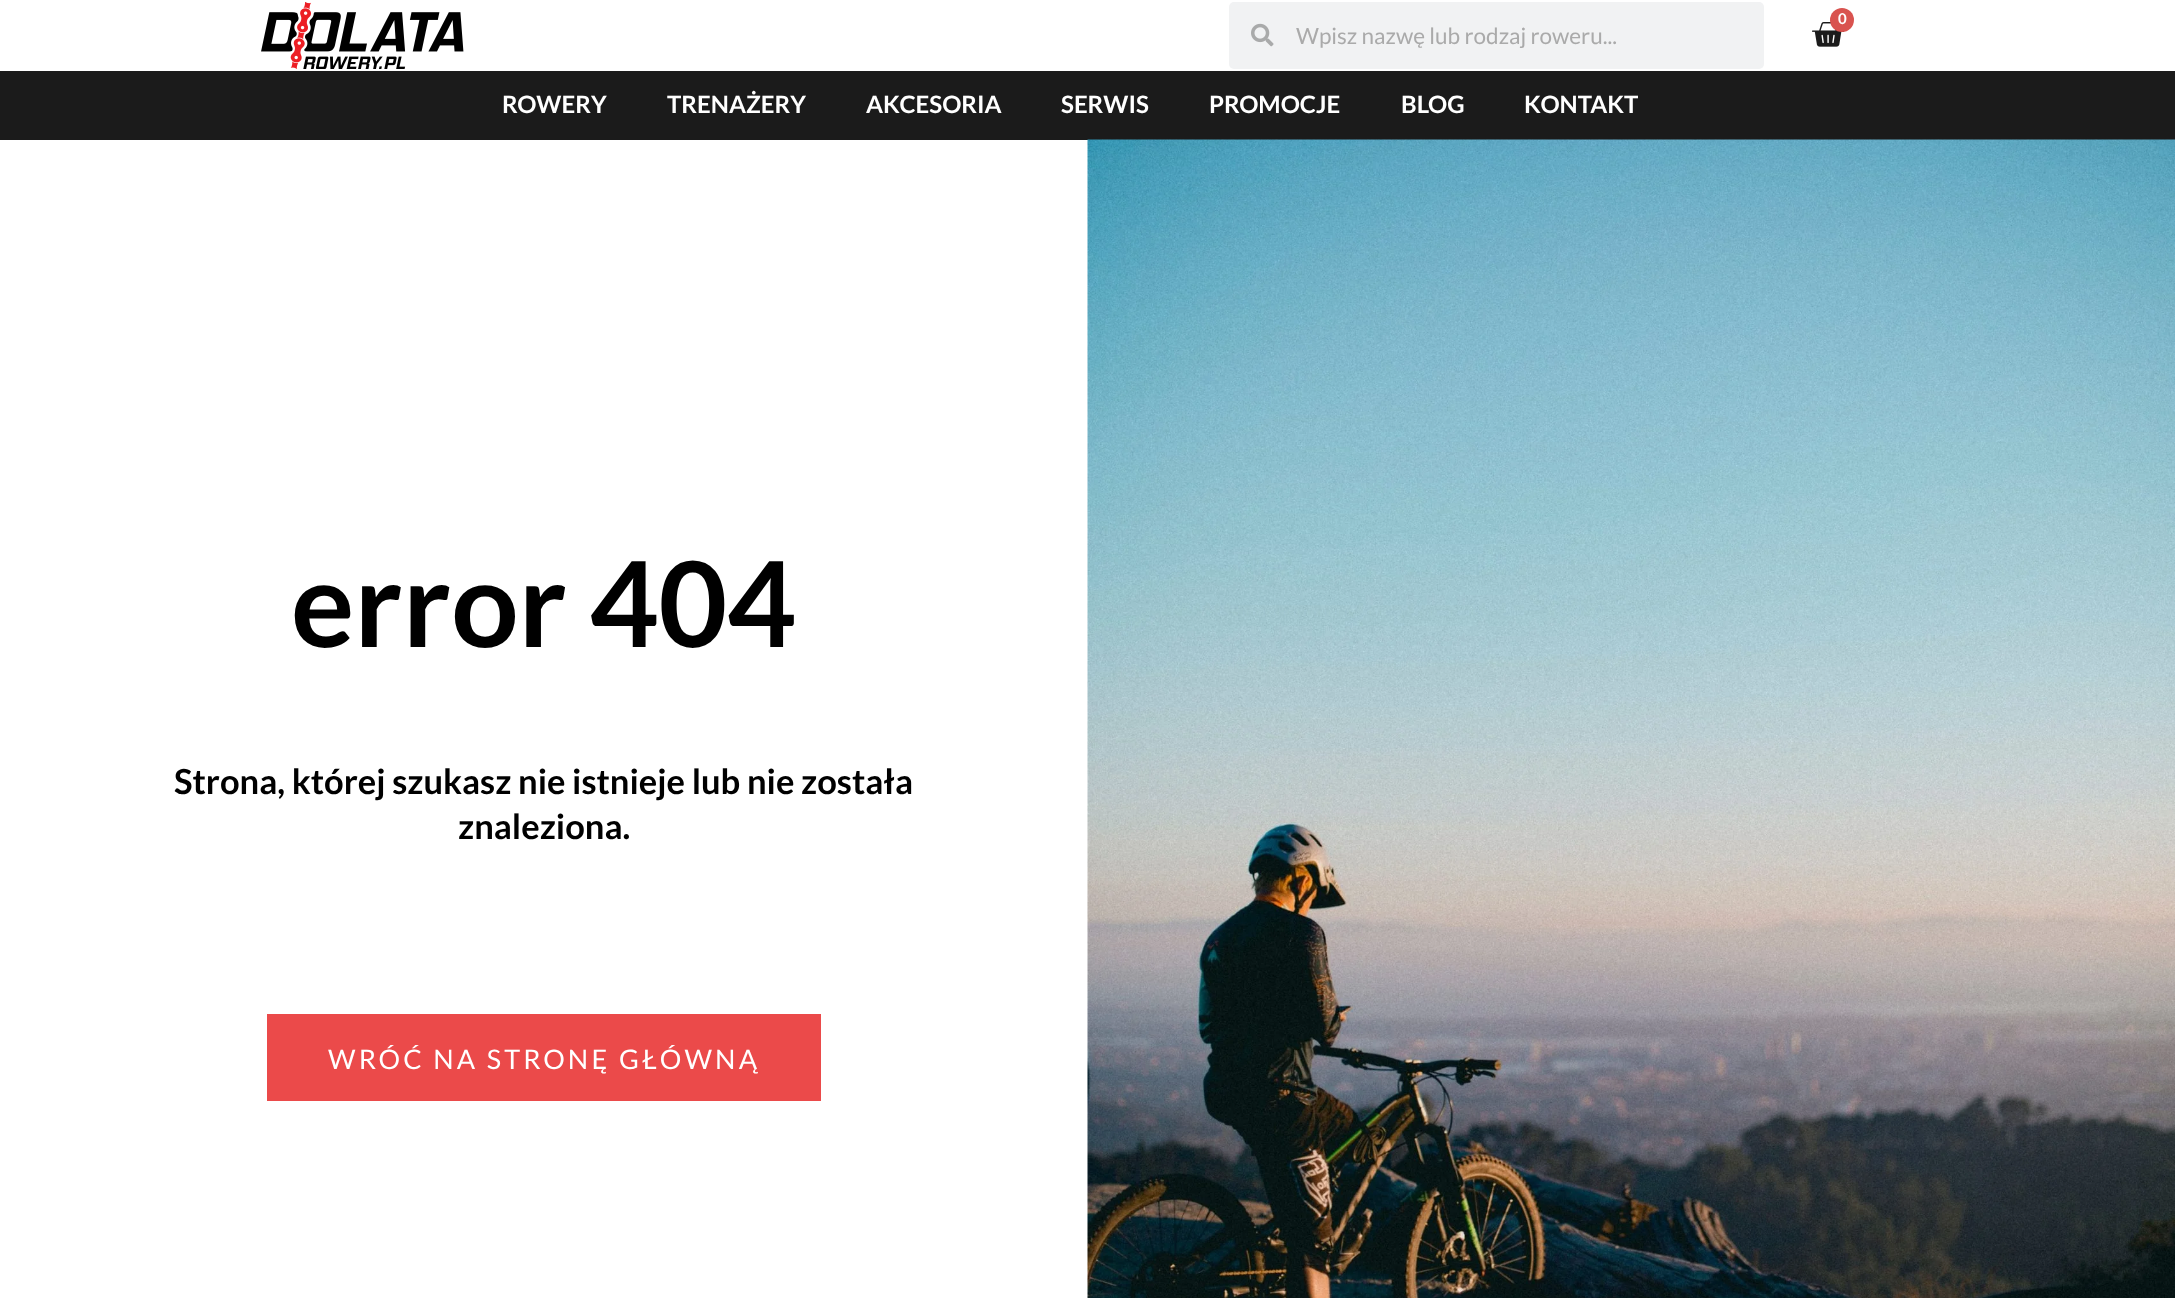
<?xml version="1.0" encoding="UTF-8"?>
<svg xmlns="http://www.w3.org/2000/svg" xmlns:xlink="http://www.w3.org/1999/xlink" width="2175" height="1298">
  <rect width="100%" height="100%" fill="#ffffff" />
  <image x="261" y="2" width="203" height="67" xlink:href="image1.png" />
  <image x="1812" y="22" width="33" height="25" xlink:href="image2.png" />
  <circle cx="1842" cy="20" r="12" fill="#d9534f" />
  <rect x="1229" y="2" width="535" height="67" rx="5" fill="#f1f2f3" />
  <image x="1251" y="23" width="23" height="24" xlink:href="image3.png" />
  <rect y="71" width="2175" height="69" fill="#1b1b1b" />
  <rect x="267" y="1014" width="554" height="87" fill="#eb4a4a" />
  <image x="1087" y="139" width="1088" height="1159" xlink:href="image4.png" />
  <text x="1838" y="24" style="font-family: Lato; font-size: 15px; font-weight: bold; fill: #ffffff">0</text>
  <text x="1296" y="44" style="font-family: Lato; font-size: 22.5px; fill: #aaaaaa">Wpisz nazwę lub rodzaj roweru...</text>
  <text x="502" y="113" style="font-family: Lato; font-size: 24px; font-weight: bold; fill: #ffffff">ROWERY</text>
  <text x="667" y="113" style="font-family: Lato; font-size: 24px; font-weight: bold; fill: #ffffff">TRENAŻERY</text>
  <text x="866" y="113" style="font-family: Lato; font-size: 24px; font-weight: bold; fill: #ffffff">AKCESORIA</text>
  <text x="1061" y="113" style="font-family: Lato; font-size: 24px; font-weight: bold; fill: #ffffff">SERWIS</text>
  <text x="1209" y="113" style="font-family: Lato; font-size: 24px; font-weight: bold; fill: #ffffff">PROMOCJE</text>
  <text x="1401" y="113" style="font-family: Lato; font-size: 24px; font-weight: bold; fill: #ffffff">BLOG</text>
  <text x="1524" y="113" style="font-family: Lato; font-size: 24px; font-weight: bold; fill: #ffffff">KONTAKT</text>
  <text x="291" y="647" style="font-family: Lato; font-size: 118.5px; font-weight: bold; fill: #000000">error 404</text>
  <text x="174" y="794" style="font-family: Lato; font-size: 34.5px; font-weight: bold; fill: #000000">Strona, której szukasz nie istnieje lub nie została</text>
  <text x="458" y="839" style="font-family: Lato; font-size: 34.5px; font-weight: bold; fill: #000000">znaleziona.</text>
  <text x="328" y="1069" style="font-family: Lato; font-size: 27px; letter-spacing: 3.15px; fill: #ffffff">WRÓĆ NA STRONĘ GŁÓWNĄ</text>
</svg>
